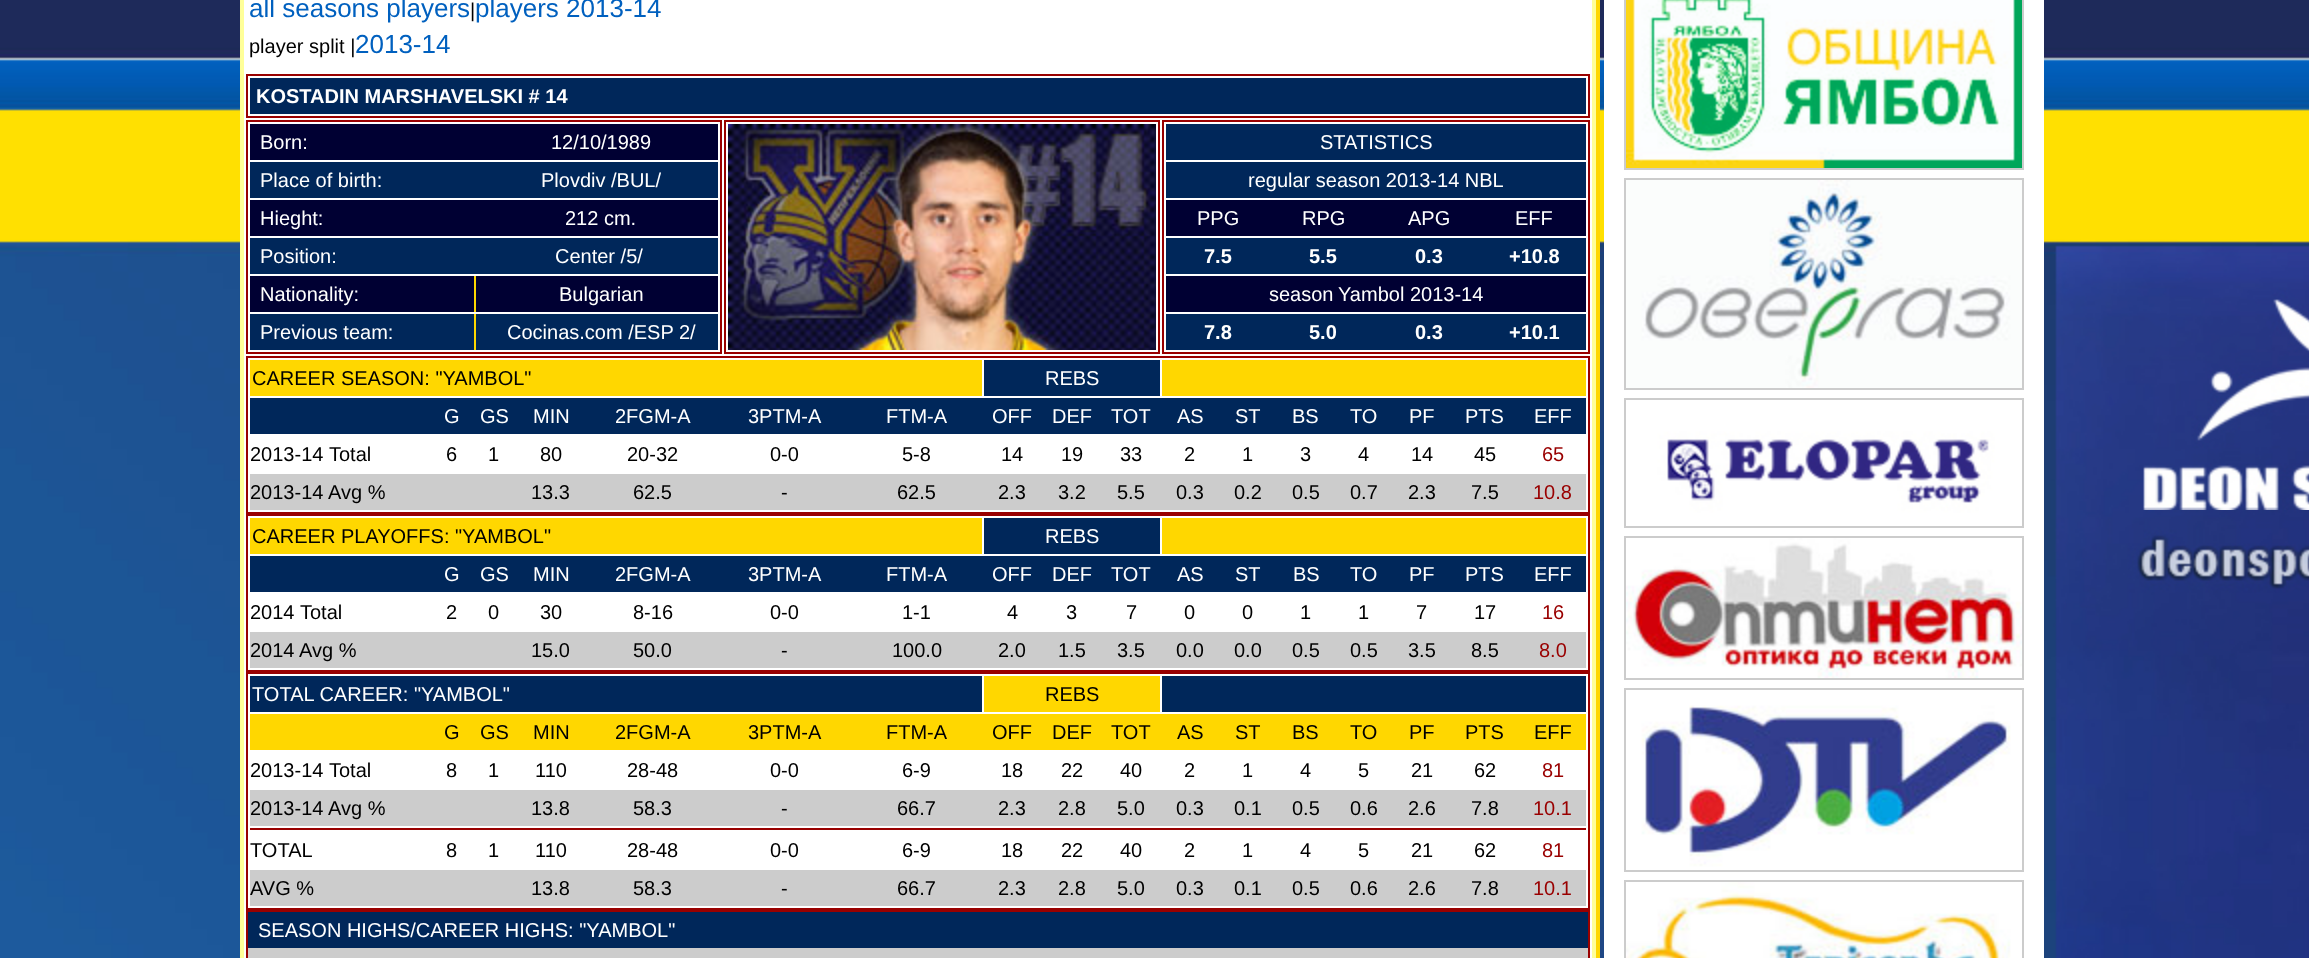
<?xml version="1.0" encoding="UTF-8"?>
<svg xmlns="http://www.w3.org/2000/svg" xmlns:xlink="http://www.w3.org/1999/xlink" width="2309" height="958">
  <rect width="100%" height="100%" fill="#ffffff" />
  <image x="0" y="0" width="2309" height="958" xlink:href="image1.png" />
  <rect x="1596" width="4" height="958" fill="#ffd700" />
  <rect x="240" width="1356" height="958" fill="#ffff99" />
  <rect x="244" width="1348" height="958" fill="#ffffff" />
  <rect x="246" y="74" width="1344" height="44" fill="#990000" />
  <rect x="248" y="76" width="1340" height="40" fill="#ffffff" />
  <rect x="250" y="78" width="1336" height="36" fill="#00275a" />
  <rect x="246" y="120" width="476" height="234" fill="#990000" />
  <rect x="248" y="122" width="472" height="230" fill="#ffffff" />
  <rect x="250" y="124" width="468" height="36" fill="#000033" />
  <rect x="250" y="162" width="468" height="36" fill="#00275a" />
  <rect x="250" y="200" width="468" height="36" fill="#000033" />
  <rect x="250" y="238" width="468" height="36" fill="#00275a" />
  <rect x="474" y="276" width="2" height="36" fill="#ffd700" />
  <rect x="250" y="276" width="224" height="36" fill="#000033" />
  <rect x="476" y="276" width="242" height="36" fill="#000033" />
  <rect x="474" y="314" width="2" height="36" fill="#ffd700" />
  <rect x="250" y="314" width="224" height="36" fill="#00275a" />
  <rect x="476" y="314" width="242" height="36" fill="#00275a" />
  <rect x="724" y="120" width="436" height="234" fill="#990000" />
  <rect x="726" y="122" width="432" height="230" fill="#ffffff" />
  <image x="728" y="124" width="428" height="226" xlink:href="image2.png" />
  <rect x="1162" y="120" width="428" height="234" fill="#990000" />
  <rect x="1164" y="122" width="424" height="230" fill="#ffffff" />
  <rect x="1166" y="124" width="420" height="36" fill="#00275a" />
  <rect x="1166" y="162" width="420" height="36" fill="#00275a" />
  <rect x="1166" y="200" width="420" height="36" fill="#000033" />
  <rect x="1166" y="238" width="420" height="36" fill="#00275a" />
  <rect x="1166" y="276" width="420" height="36" fill="#000033" />
  <rect x="1166" y="314" width="420" height="36" fill="#00275a" />
  <rect x="246" y="356" width="1344" height="602" fill="#990000" />
  <rect x="248" y="358" width="1340" height="154" fill="#ffffff" />
  <rect x="250" y="360" width="732" height="36" fill="#ffd700" />
  <rect x="984" y="360" width="176" height="36" fill="#00275a" />
  <rect x="1162" y="360" width="424" height="36" fill="#ffd700" />
  <rect x="250" y="398" width="1336" height="36" fill="#00275a" />
  <rect x="250" y="474" width="1336" height="36" fill="#cccccc" />
  <rect x="248" y="516" width="1340" height="154" fill="#ffffff" />
  <rect x="250" y="518" width="732" height="36" fill="#ffd700" />
  <rect x="984" y="518" width="176" height="36" fill="#00275a" />
  <rect x="1162" y="518" width="424" height="36" fill="#ffd700" />
  <rect x="250" y="556" width="1336" height="36" fill="#00275a" />
  <rect x="250" y="632" width="1336" height="36" fill="#cccccc" />
  <rect x="248" y="674" width="1340" height="234" fill="#ffffff" />
  <rect x="250" y="676" width="732" height="36" fill="#00275a" />
  <rect x="984" y="676" width="176" height="36" fill="#ffd700" />
  <rect x="1162" y="676" width="424" height="36" fill="#00275a" />
  <rect x="250" y="714" width="1336" height="36" fill="#ffd700" />
  <rect x="250" y="790" width="1336" height="36" fill="#cccccc" />
  <rect x="250" y="828" width="1336" height="2" fill="#990000" />
  <rect x="250" y="870" width="1336" height="36" fill="#cccccc" />
  <rect x="248" y="912" width="1340" height="36" fill="#00275a" />
  <rect x="248" y="948" width="1340" height="10" fill="#cccccc" />
  <rect x="1604" width="440" height="958" fill="#ffffff" />
  <rect x="1624" width="400" height="170" fill="#cccccc" />
  <image x="1626" y="0" width="396" height="168" xlink:href="image3.png" />
  <rect x="1624" y="178" width="400" height="212" fill="#cccccc" />
  <image x="1626" y="180" width="396" height="208" xlink:href="image4.png" />
  <rect x="1624" y="398" width="400" height="130" fill="#cccccc" />
  <image x="1626" y="400" width="396" height="126" xlink:href="image5.png" />
  <rect x="1624" y="536" width="400" height="144" fill="#cccccc" />
  <image x="1626" y="538" width="396" height="140" xlink:href="image6.png" />
  <rect x="1624" y="688" width="400" height="184" fill="#cccccc" />
  <image x="1626" y="690" width="396" height="180" xlink:href="image7.png" />
  <rect x="1624" y="880" width="400" height="78" fill="#cccccc" />
  <image x="1626" y="882" width="396" height="76" xlink:href="image8.png" />
  <text x="249" y="17" style="font-family: Liberation Sans; font-size: 26px; fill: #0060bf">all seasons players</text>
  <text x="470" y="17" style="font-family: Liberation Sans; font-size: 20px; fill: #000000">|</text>
  <text x="475" y="17" style="font-family: Liberation Sans; font-size: 26px; fill: #0060bf">players 2013-14</text>
  <text x="249" y="53" style="font-family: Liberation Sans; font-size: 20px; fill: #000000">player split |</text>
  <text x="355" y="53" style="font-family: Liberation Sans; font-size: 26px; fill: #0060bf">2013-14</text>
  <text x="256" y="103" style="font-family: Liberation Sans; font-size: 20px; font-weight: bold; fill: #ffffff">KOSTADIN MARSHAVELSKI # 14</text>
  <text x="260" y="149" style="font-family: Liberation Sans; font-size: 20px; fill: #ffffff">Born:</text>
  <text x="551" y="149" style="font-family: Liberation Sans; font-size: 20px; fill: #ffffff">12/10/1989</text>
  <text x="260" y="187" style="font-family: Liberation Sans; font-size: 20px; fill: #ffffff">Place of birth:</text>
  <text x="541" y="187" style="font-family: Liberation Sans; font-size: 20px; fill: #ffffff">Plovdiv /BUL/</text>
  <text x="260" y="225" style="font-family: Liberation Sans; font-size: 20px; fill: #ffffff">Hieght:</text>
  <text x="565" y="225" style="font-family: Liberation Sans; font-size: 20px; fill: #ffffff">212 cm.</text>
  <text x="260" y="263" style="font-family: Liberation Sans; font-size: 20px; fill: #ffffff">Position:</text>
  <text x="555" y="263" style="font-family: Liberation Sans; font-size: 20px; fill: #ffffff">Center /5/</text>
  <text x="260" y="301" style="font-family: Liberation Sans; font-size: 20px; fill: #ffffff">Nationality:</text>
  <text x="559" y="301" style="font-family: Liberation Sans; font-size: 20px; fill: #ffffff">Bulgarian</text>
  <text x="260" y="339" style="font-family: Liberation Sans; font-size: 20px; fill: #ffffff">Previous team:</text>
  <text x="507" y="339" style="font-family: Liberation Sans; font-size: 20px; fill: #ffffff">Cocinas.com /ESP 2/</text>
  <text x="1320" y="149" style="font-family: Liberation Sans; font-size: 20px; fill: #ffffff">STATISTICS</text>
  <text x="1248" y="187" style="font-family: Liberation Sans; font-size: 20px; fill: #ffffff">regular season 2013-14 NBL</text>
  <text x="1197" y="225" style="font-family: Liberation Sans; font-size: 20px; fill: #ffffff">PPG</text>
  <text x="1302" y="225" style="font-family: Liberation Sans; font-size: 20px; fill: #ffffff">RPG</text>
  <text x="1408" y="225" style="font-family: Liberation Sans; font-size: 20px; fill: #ffffff">APG</text>
  <text x="1515" y="225" style="font-family: Liberation Sans; font-size: 20px; fill: #ffffff">EFF</text>
  <text x="1204" y="263" style="font-family: Liberation Sans; font-size: 20px; font-weight: bold; fill: #ffffff">7.5</text>
  <text x="1309" y="263" style="font-family: Liberation Sans; font-size: 20px; font-weight: bold; fill: #ffffff">5.5</text>
  <text x="1415" y="263" style="font-family: Liberation Sans; font-size: 20px; font-weight: bold; fill: #ffffff">0.3</text>
  <text x="1509" y="263" style="font-family: Liberation Sans; font-size: 20px; font-weight: bold; fill: #ffffff">+10.8</text>
  <text x="1269" y="301" style="font-family: Liberation Sans; font-size: 20px; fill: #ffffff">season</text>
  <text x="1338" y="301" style="font-family: Liberation Sans; font-size: 20px; fill: #ffffff">Yambol 2013-14</text>
  <text x="1204" y="339" style="font-family: Liberation Sans; font-size: 20px; font-weight: bold; fill: #ffffff">7.8</text>
  <text x="1309" y="339" style="font-family: Liberation Sans; font-size: 20px; font-weight: bold; fill: #ffffff">5.0</text>
  <text x="1415" y="339" style="font-family: Liberation Sans; font-size: 20px; font-weight: bold; fill: #ffffff">0.3</text>
  <text x="1509" y="339" style="font-family: Liberation Sans; font-size: 20px; font-weight: bold; fill: #ffffff">+10.1</text>
  <text x="252" y="385" style="font-family: Liberation Sans; font-size: 20px; fill: #000000">CAREER SEASON: "YAMBOL"</text>
  <text x="1045" y="385" style="font-family: Liberation Sans; font-size: 20px; fill: #ffffff">REBS</text>
  <text x="444" y="423" style="font-family: Liberation Sans; font-size: 20px; fill: #ffffff">G</text>
  <text x="480" y="423" style="font-family: Liberation Sans; font-size: 20px; fill: #ffffff">GS</text>
  <text x="533" y="423" style="font-family: Liberation Sans; font-size: 20px; fill: #ffffff">MIN</text>
  <text x="615" y="423" style="font-family: Liberation Sans; font-size: 20px; fill: #ffffff">2FGM-A</text>
  <text x="748" y="423" style="font-family: Liberation Sans; font-size: 20px; fill: #ffffff">3PTM-A</text>
  <text x="886" y="423" style="font-family: Liberation Sans; font-size: 20px; fill: #ffffff">FTM-A</text>
  <text x="992" y="423" style="font-family: Liberation Sans; font-size: 20px; fill: #ffffff">OFF</text>
  <text x="1052" y="423" style="font-family: Liberation Sans; font-size: 20px; fill: #ffffff">DEF</text>
  <text x="1111" y="423" style="font-family: Liberation Sans; font-size: 20px; fill: #ffffff">TOT</text>
  <text x="1177" y="423" style="font-family: Liberation Sans; font-size: 20px; fill: #ffffff">AS</text>
  <text x="1235" y="423" style="font-family: Liberation Sans; font-size: 20px; fill: #ffffff">ST</text>
  <text x="1292" y="423" style="font-family: Liberation Sans; font-size: 20px; fill: #ffffff">BS</text>
  <text x="1350" y="423" style="font-family: Liberation Sans; font-size: 20px; fill: #ffffff">TO</text>
  <text x="1409" y="423" style="font-family: Liberation Sans; font-size: 20px; fill: #ffffff">PF</text>
  <text x="1465" y="423" style="font-family: Liberation Sans; font-size: 20px; fill: #ffffff">PTS</text>
  <text x="1534" y="423" style="font-family: Liberation Sans; font-size: 20px; fill: #ffffff">EFF</text>
  <text x="250" y="461" style="font-family: Liberation Sans; font-size: 20px; fill: #000000">2013-14</text>
  <text x="329" y="461" style="font-family: Liberation Sans; font-size: 20px; fill: #000000">Total</text>
  <text x="446" y="461" style="font-family: Liberation Sans; font-size: 20px; fill: #000000">6</text>
  <text x="488" y="461" style="font-family: Liberation Sans; font-size: 20px; fill: #000000">1</text>
  <text x="540" y="461" style="font-family: Liberation Sans; font-size: 20px; fill: #000000">80</text>
  <text x="627" y="461" style="font-family: Liberation Sans; font-size: 20px; fill: #000000">20-32</text>
  <text x="770" y="461" style="font-family: Liberation Sans; font-size: 20px; fill: #000000">0-0</text>
  <text x="902" y="461" style="font-family: Liberation Sans; font-size: 20px; fill: #000000">5-8</text>
  <text x="1001" y="461" style="font-family: Liberation Sans; font-size: 20px; fill: #000000">14</text>
  <text x="1061" y="461" style="font-family: Liberation Sans; font-size: 20px; fill: #000000">19</text>
  <text x="1120" y="461" style="font-family: Liberation Sans; font-size: 20px; fill: #000000">33</text>
  <text x="1184" y="461" style="font-family: Liberation Sans; font-size: 20px; fill: #000000">2</text>
  <text x="1242" y="461" style="font-family: Liberation Sans; font-size: 20px; fill: #000000">1</text>
  <text x="1300" y="461" style="font-family: Liberation Sans; font-size: 20px; fill: #000000">3</text>
  <text x="1358" y="461" style="font-family: Liberation Sans; font-size: 20px; fill: #000000">4</text>
  <text x="1411" y="461" style="font-family: Liberation Sans; font-size: 20px; fill: #000000">14</text>
  <text x="1474" y="461" style="font-family: Liberation Sans; font-size: 20px; fill: #000000">45</text>
  <text x="1542" y="461" style="font-family: Liberation Sans; font-size: 20px; fill: #990000">65</text>
  <text x="250" y="499" style="font-family: Liberation Sans; font-size: 20px; fill: #000000">2013-14</text>
  <text x="328" y="499" style="font-family: Liberation Sans; font-size: 20px; fill: #000000">Avg %</text>
  <text x="531" y="499" style="font-family: Liberation Sans; font-size: 20px; fill: #000000">13.3</text>
  <text x="633" y="499" style="font-family: Liberation Sans; font-size: 20px; fill: #000000">62.5</text>
  <text x="781" y="499" style="font-family: Liberation Sans; font-size: 20px; fill: #000000">-</text>
  <text x="897" y="499" style="font-family: Liberation Sans; font-size: 20px; fill: #000000">62.5</text>
  <text x="998" y="499" style="font-family: Liberation Sans; font-size: 20px; fill: #000000">2.3</text>
  <text x="1058" y="499" style="font-family: Liberation Sans; font-size: 20px; fill: #000000">3.2</text>
  <text x="1117" y="499" style="font-family: Liberation Sans; font-size: 20px; fill: #000000">5.5</text>
  <text x="1176" y="499" style="font-family: Liberation Sans; font-size: 20px; fill: #000000">0.3</text>
  <text x="1234" y="499" style="font-family: Liberation Sans; font-size: 20px; fill: #000000">0.2</text>
  <text x="1292" y="499" style="font-family: Liberation Sans; font-size: 20px; fill: #000000">0.5</text>
  <text x="1350" y="499" style="font-family: Liberation Sans; font-size: 20px; fill: #000000">0.7</text>
  <text x="1408" y="499" style="font-family: Liberation Sans; font-size: 20px; fill: #000000">2.3</text>
  <text x="1471" y="499" style="font-family: Liberation Sans; font-size: 20px; fill: #000000">7.5</text>
  <text x="1533" y="499" style="font-family: Liberation Sans; font-size: 20px; fill: #990000">10.8</text>
  <text x="252" y="543" style="font-family: Liberation Sans; font-size: 20px; fill: #000000">CAREER PLAYOFFS: "YAMBOL"</text>
  <text x="1045" y="543" style="font-family: Liberation Sans; font-size: 20px; fill: #ffffff">REBS</text>
  <text x="444" y="581" style="font-family: Liberation Sans; font-size: 20px; fill: #ffffff">G</text>
  <text x="480" y="581" style="font-family: Liberation Sans; font-size: 20px; fill: #ffffff">GS</text>
  <text x="533" y="581" style="font-family: Liberation Sans; font-size: 20px; fill: #ffffff">MIN</text>
  <text x="615" y="581" style="font-family: Liberation Sans; font-size: 20px; fill: #ffffff">2FGM-A</text>
  <text x="748" y="581" style="font-family: Liberation Sans; font-size: 20px; fill: #ffffff">3PTM-A</text>
  <text x="886" y="581" style="font-family: Liberation Sans; font-size: 20px; fill: #ffffff">FTM-A</text>
  <text x="992" y="581" style="font-family: Liberation Sans; font-size: 20px; fill: #ffffff">OFF</text>
  <text x="1052" y="581" style="font-family: Liberation Sans; font-size: 20px; fill: #ffffff">DEF</text>
  <text x="1111" y="581" style="font-family: Liberation Sans; font-size: 20px; fill: #ffffff">TOT</text>
  <text x="1177" y="581" style="font-family: Liberation Sans; font-size: 20px; fill: #ffffff">AS</text>
  <text x="1235" y="581" style="font-family: Liberation Sans; font-size: 20px; fill: #ffffff">ST</text>
  <text x="1293" y="581" style="font-family: Liberation Sans; font-size: 20px; fill: #ffffff">BS</text>
  <text x="1350" y="581" style="font-family: Liberation Sans; font-size: 20px; fill: #ffffff">TO</text>
  <text x="1409" y="581" style="font-family: Liberation Sans; font-size: 20px; fill: #ffffff">PF</text>
  <text x="1465" y="581" style="font-family: Liberation Sans; font-size: 20px; fill: #ffffff">PTS</text>
  <text x="1534" y="581" style="font-family: Liberation Sans; font-size: 20px; fill: #ffffff">EFF</text>
  <text x="250" y="619" style="font-family: Liberation Sans; font-size: 20px; fill: #000000">2014</text>
  <text x="300" y="619" style="font-family: Liberation Sans; font-size: 20px; fill: #000000">Total</text>
  <text x="446" y="619" style="font-family: Liberation Sans; font-size: 20px; fill: #000000">2</text>
  <text x="488" y="619" style="font-family: Liberation Sans; font-size: 20px; fill: #000000">0</text>
  <text x="540" y="619" style="font-family: Liberation Sans; font-size: 20px; fill: #000000">30</text>
  <text x="633" y="619" style="font-family: Liberation Sans; font-size: 20px; fill: #000000">8-16</text>
  <text x="770" y="619" style="font-family: Liberation Sans; font-size: 20px; fill: #000000">0-0</text>
  <text x="902" y="619" style="font-family: Liberation Sans; font-size: 20px; fill: #000000">1-1</text>
  <text x="1007" y="619" style="font-family: Liberation Sans; font-size: 20px; fill: #000000">4</text>
  <text x="1066" y="619" style="font-family: Liberation Sans; font-size: 20px; fill: #000000">3</text>
  <text x="1126" y="619" style="font-family: Liberation Sans; font-size: 20px; fill: #000000">7</text>
  <text x="1184" y="619" style="font-family: Liberation Sans; font-size: 20px; fill: #000000">0</text>
  <text x="1242" y="619" style="font-family: Liberation Sans; font-size: 20px; fill: #000000">0</text>
  <text x="1300" y="619" style="font-family: Liberation Sans; font-size: 20px; fill: #000000">1</text>
  <text x="1358" y="619" style="font-family: Liberation Sans; font-size: 20px; fill: #000000">1</text>
  <text x="1416" y="619" style="font-family: Liberation Sans; font-size: 20px; fill: #000000">7</text>
  <text x="1474" y="619" style="font-family: Liberation Sans; font-size: 20px; fill: #000000">17</text>
  <text x="1542" y="619" style="font-family: Liberation Sans; font-size: 20px; fill: #990000">16</text>
  <text x="250" y="657" style="font-family: Liberation Sans; font-size: 20px; fill: #000000">2014</text>
  <text x="299" y="657" style="font-family: Liberation Sans; font-size: 20px; fill: #000000">Avg %</text>
  <text x="531" y="657" style="font-family: Liberation Sans; font-size: 20px; fill: #000000">15.0</text>
  <text x="633" y="657" style="font-family: Liberation Sans; font-size: 20px; fill: #000000">50.0</text>
  <text x="781" y="657" style="font-family: Liberation Sans; font-size: 20px; fill: #000000">-</text>
  <text x="892" y="657" style="font-family: Liberation Sans; font-size: 20px; fill: #000000">100.0</text>
  <text x="998" y="657" style="font-family: Liberation Sans; font-size: 20px; fill: #000000">2.0</text>
  <text x="1058" y="657" style="font-family: Liberation Sans; font-size: 20px; fill: #000000">1.5</text>
  <text x="1117" y="657" style="font-family: Liberation Sans; font-size: 20px; fill: #000000">3.5</text>
  <text x="1176" y="657" style="font-family: Liberation Sans; font-size: 20px; fill: #000000">0.0</text>
  <text x="1234" y="657" style="font-family: Liberation Sans; font-size: 20px; fill: #000000">0.0</text>
  <text x="1292" y="657" style="font-family: Liberation Sans; font-size: 20px; fill: #000000">0.5</text>
  <text x="1350" y="657" style="font-family: Liberation Sans; font-size: 20px; fill: #000000">0.5</text>
  <text x="1408" y="657" style="font-family: Liberation Sans; font-size: 20px; fill: #000000">3.5</text>
  <text x="1471" y="657" style="font-family: Liberation Sans; font-size: 20px; fill: #000000">8.5</text>
  <text x="1539" y="657" style="font-family: Liberation Sans; font-size: 20px; fill: #990000">8.0</text>
  <text x="252" y="701" style="font-family: Liberation Sans; font-size: 20px; fill: #ffffff">TOTAL CAREER: "YAMBOL"</text>
  <text x="1045" y="701" style="font-family: Liberation Sans; font-size: 20px; fill: #000000">REBS</text>
  <text x="444" y="739" style="font-family: Liberation Sans; font-size: 20px; fill: #000000">G</text>
  <text x="480" y="739" style="font-family: Liberation Sans; font-size: 20px; fill: #000000">GS</text>
  <text x="533" y="739" style="font-family: Liberation Sans; font-size: 20px; fill: #000000">MIN</text>
  <text x="615" y="739" style="font-family: Liberation Sans; font-size: 20px; fill: #000000">2FGM-A</text>
  <text x="748" y="739" style="font-family: Liberation Sans; font-size: 20px; fill: #000000">3PTM-A</text>
  <text x="886" y="739" style="font-family: Liberation Sans; font-size: 20px; fill: #000000">FTM-A</text>
  <text x="992" y="739" style="font-family: Liberation Sans; font-size: 20px; fill: #000000">OFF</text>
  <text x="1052" y="739" style="font-family: Liberation Sans; font-size: 20px; fill: #000000">DEF</text>
  <text x="1111" y="739" style="font-family: Liberation Sans; font-size: 20px; fill: #000000">TOT</text>
  <text x="1177" y="739" style="font-family: Liberation Sans; font-size: 20px; fill: #000000">AS</text>
  <text x="1235" y="739" style="font-family: Liberation Sans; font-size: 20px; fill: #000000">ST</text>
  <text x="1292" y="739" style="font-family: Liberation Sans; font-size: 20px; fill: #000000">BS</text>
  <text x="1350" y="739" style="font-family: Liberation Sans; font-size: 20px; fill: #000000">TO</text>
  <text x="1409" y="739" style="font-family: Liberation Sans; font-size: 20px; fill: #000000">PF</text>
  <text x="1465" y="739" style="font-family: Liberation Sans; font-size: 20px; fill: #000000">PTS</text>
  <text x="1534" y="739" style="font-family: Liberation Sans; font-size: 20px; fill: #000000">EFF</text>
  <text x="250" y="777" style="font-family: Liberation Sans; font-size: 20px; fill: #000000">2013-14</text>
  <text x="329" y="777" style="font-family: Liberation Sans; font-size: 20px; fill: #000000">Total</text>
  <text x="446" y="777" style="font-family: Liberation Sans; font-size: 20px; fill: #000000">8</text>
  <text x="488" y="777" style="font-family: Liberation Sans; font-size: 20px; fill: #000000">1</text>
  <text x="535" y="777" style="font-family: Liberation Sans; font-size: 20px; fill: #000000">110</text>
  <text x="627" y="777" style="font-family: Liberation Sans; font-size: 20px; fill: #000000">28-48</text>
  <text x="770" y="777" style="font-family: Liberation Sans; font-size: 20px; fill: #000000">0-0</text>
  <text x="902" y="777" style="font-family: Liberation Sans; font-size: 20px; fill: #000000">6-9</text>
  <text x="1001" y="777" style="font-family: Liberation Sans; font-size: 20px; fill: #000000">18</text>
  <text x="1061" y="777" style="font-family: Liberation Sans; font-size: 20px; fill: #000000">22</text>
  <text x="1120" y="777" style="font-family: Liberation Sans; font-size: 20px; fill: #000000">40</text>
  <text x="1184" y="777" style="font-family: Liberation Sans; font-size: 20px; fill: #000000">2</text>
  <text x="1242" y="777" style="font-family: Liberation Sans; font-size: 20px; fill: #000000">1</text>
  <text x="1300" y="777" style="font-family: Liberation Sans; font-size: 20px; fill: #000000">4</text>
  <text x="1358" y="777" style="font-family: Liberation Sans; font-size: 20px; fill: #000000">5</text>
  <text x="1411" y="777" style="font-family: Liberation Sans; font-size: 20px; fill: #000000">21</text>
  <text x="1474" y="777" style="font-family: Liberation Sans; font-size: 20px; fill: #000000">62</text>
  <text x="1542" y="777" style="font-family: Liberation Sans; font-size: 20px; fill: #990000">81</text>
  <text x="250" y="815" style="font-family: Liberation Sans; font-size: 20px; fill: #000000">2013-14</text>
  <text x="328" y="815" style="font-family: Liberation Sans; font-size: 20px; fill: #000000">Avg %</text>
  <text x="531" y="815" style="font-family: Liberation Sans; font-size: 20px; fill: #000000">13.8</text>
  <text x="633" y="815" style="font-family: Liberation Sans; font-size: 20px; fill: #000000">58.3</text>
  <text x="781" y="815" style="font-family: Liberation Sans; font-size: 20px; fill: #000000">-</text>
  <text x="897" y="815" style="font-family: Liberation Sans; font-size: 20px; fill: #000000">66.7</text>
  <text x="998" y="815" style="font-family: Liberation Sans; font-size: 20px; fill: #000000">2.3</text>
  <text x="1058" y="815" style="font-family: Liberation Sans; font-size: 20px; fill: #000000">2.8</text>
  <text x="1117" y="815" style="font-family: Liberation Sans; font-size: 20px; fill: #000000">5.0</text>
  <text x="1176" y="815" style="font-family: Liberation Sans; font-size: 20px; fill: #000000">0.3</text>
  <text x="1234" y="815" style="font-family: Liberation Sans; font-size: 20px; fill: #000000">0.1</text>
  <text x="1292" y="815" style="font-family: Liberation Sans; font-size: 20px; fill: #000000">0.5</text>
  <text x="1350" y="815" style="font-family: Liberation Sans; font-size: 20px; fill: #000000">0.6</text>
  <text x="1408" y="815" style="font-family: Liberation Sans; font-size: 20px; fill: #000000">2.6</text>
  <text x="1471" y="815" style="font-family: Liberation Sans; font-size: 20px; fill: #000000">7.8</text>
  <text x="1533" y="815" style="font-family: Liberation Sans; font-size: 20px; fill: #990000">10.1</text>
  <text x="250" y="857" style="font-family: Liberation Sans; font-size: 20px; fill: #000000">TOTAL</text>
  <text x="446" y="857" style="font-family: Liberation Sans; font-size: 20px; fill: #000000">8</text>
  <text x="488" y="857" style="font-family: Liberation Sans; font-size: 20px; fill: #000000">1</text>
  <text x="535" y="857" style="font-family: Liberation Sans; font-size: 20px; fill: #000000">110</text>
  <text x="627" y="857" style="font-family: Liberation Sans; font-size: 20px; fill: #000000">28-48</text>
  <text x="770" y="857" style="font-family: Liberation Sans; font-size: 20px; fill: #000000">0-0</text>
  <text x="902" y="857" style="font-family: Liberation Sans; font-size: 20px; fill: #000000">6-9</text>
  <text x="1001" y="857" style="font-family: Liberation Sans; font-size: 20px; fill: #000000">18</text>
  <text x="1061" y="857" style="font-family: Liberation Sans; font-size: 20px; fill: #000000">22</text>
  <text x="1120" y="857" style="font-family: Liberation Sans; font-size: 20px; fill: #000000">40</text>
  <text x="1184" y="857" style="font-family: Liberation Sans; font-size: 20px; fill: #000000">2</text>
  <text x="1242" y="857" style="font-family: Liberation Sans; font-size: 20px; fill: #000000">1</text>
  <text x="1300" y="857" style="font-family: Liberation Sans; font-size: 20px; fill: #000000">4</text>
  <text x="1358" y="857" style="font-family: Liberation Sans; font-size: 20px; fill: #000000">5</text>
  <text x="1411" y="857" style="font-family: Liberation Sans; font-size: 20px; fill: #000000">21</text>
  <text x="1474" y="857" style="font-family: Liberation Sans; font-size: 20px; fill: #000000">62</text>
  <text x="1542" y="857" style="font-family: Liberation Sans; font-size: 20px; fill: #990000">81</text>
  <text x="250" y="895" style="font-family: Liberation Sans; font-size: 20px; fill: #000000">AVG %</text>
  <text x="531" y="895" style="font-family: Liberation Sans; font-size: 20px; fill: #000000">13.8</text>
  <text x="633" y="895" style="font-family: Liberation Sans; font-size: 20px; fill: #000000">58.3</text>
  <text x="781" y="895" style="font-family: Liberation Sans; font-size: 20px; fill: #000000">-</text>
  <text x="897" y="895" style="font-family: Liberation Sans; font-size: 20px; fill: #000000">66.7</text>
  <text x="998" y="895" style="font-family: Liberation Sans; font-size: 20px; fill: #000000">2.3</text>
  <text x="1058" y="895" style="font-family: Liberation Sans; font-size: 20px; fill: #000000">2.8</text>
  <text x="1117" y="895" style="font-family: Liberation Sans; font-size: 20px; fill: #000000">5.0</text>
  <text x="1176" y="895" style="font-family: Liberation Sans; font-size: 20px; fill: #000000">0.3</text>
  <text x="1234" y="895" style="font-family: Liberation Sans; font-size: 20px; fill: #000000">0.1</text>
  <text x="1292" y="895" style="font-family: Liberation Sans; font-size: 20px; fill: #000000">0.5</text>
  <text x="1350" y="895" style="font-family: Liberation Sans; font-size: 20px; fill: #000000">0.6</text>
  <text x="1408" y="895" style="font-family: Liberation Sans; font-size: 20px; fill: #000000">2.6</text>
  <text x="1471" y="895" style="font-family: Liberation Sans; font-size: 20px; fill: #000000">7.8</text>
  <text x="1533" y="895" style="font-family: Liberation Sans; font-size: 20px; fill: #990000">10.1</text>
  <text x="258" y="937" style="font-family: Liberation Sans; font-size: 20px; fill: #ffffff">SEASON HIGHS/CAREER HIGHS: "YAMBOL"</text>
</svg>
